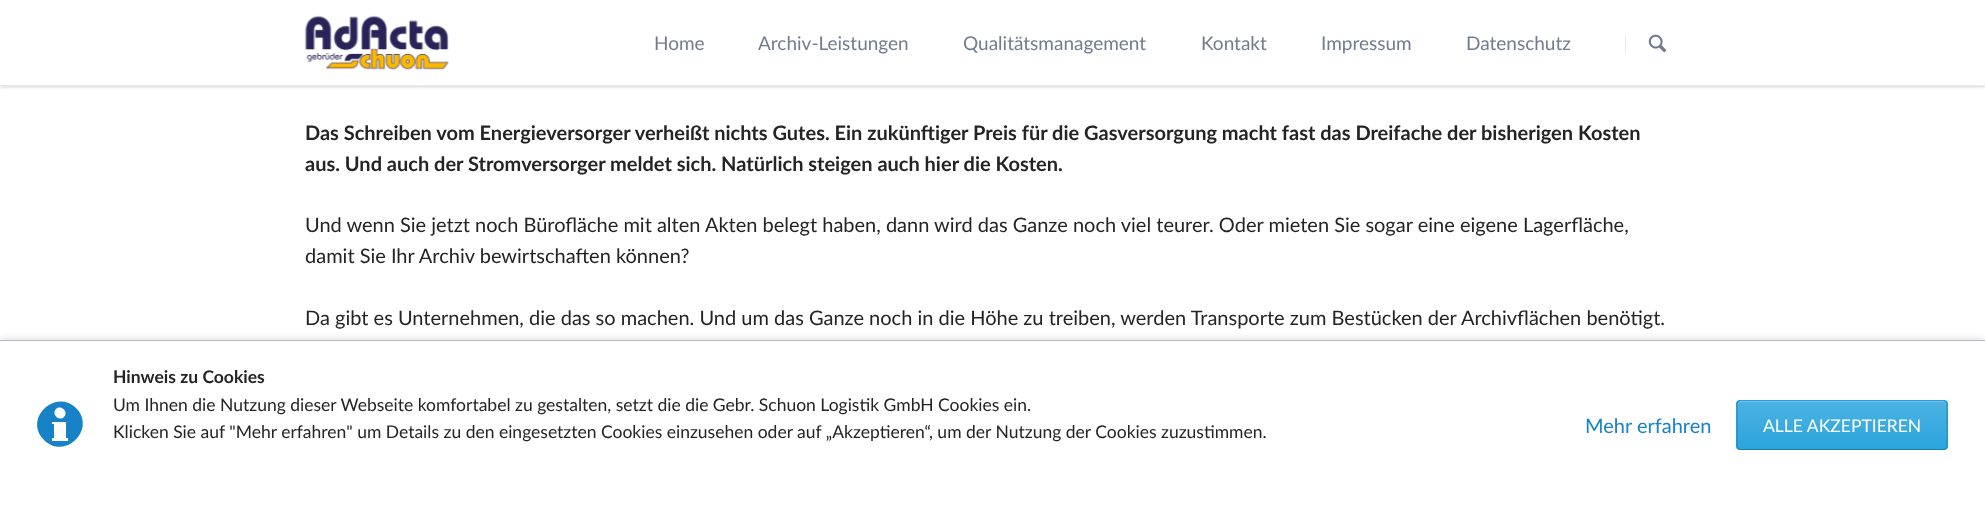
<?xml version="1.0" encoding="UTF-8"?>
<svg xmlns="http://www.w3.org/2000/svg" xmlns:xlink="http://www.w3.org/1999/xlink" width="1985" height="510">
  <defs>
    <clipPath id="clip1"><rect x="1736" y="400" width="212" height="50" rx="4" /></clipPath>
    <linearGradient id="g1" gradientUnits="userSpaceOnUse" x1="1842" y1="354" x2="1842" y2="401"><stop offset="0" stop-color="#4db3e3" /><stop offset="1" stop-color="#2aa4dd" /></linearGradient>
    <linearGradient id="g2" gradientUnits="userSpaceOnUse" x1="1842" y1="401" x2="1842" y2="449"><stop offset="0" stop-color="#4db3e3" /><stop offset="1" stop-color="#2aa4dd" /></linearGradient>
    <linearGradient id="g3" gradientUnits="userSpaceOnUse" x1="1842" y1="449" x2="1842" y2="496"><stop offset="0" stop-color="#4db3e3" /><stop offset="1" stop-color="#2aa4dd" /></linearGradient>
  </defs>
  <rect width="100%" height="100%" fill="#ffffff" />
  <rect y="1" width="1985" height="87" fill="#000000" fill-opacity="0.1" filter="blur(1px)" />
  <rect width="1985" height="85" fill="#ffffff" />
  <rect y="85" width="1985" height="1" fill="#e5e8ee" />
  <image x="304" y="15" width="145" height="55" xlink:href="image1.png" />
  <rect x="1625" y="35" width="1" height="19" fill="#e5e8ee" />
  <image x="1648" y="34" width="19" height="19" xlink:href="image2.png" />
  <rect y="338" width="1985" height="170" fill="#000000" fill-opacity="0.1" filter="blur(3px)" />
  <rect y="341" width="1985" height="169" fill="#ffffff" />
  <rect y="340" width="1985" height="1" fill="#b2b9c4" />
  <path d="M 76 408 c -21 -20 -53 11 -32 32 c 21 21 53 -11 32 -32 z m -20 1 c 5 -5 13 3 8 8 c -5 5 -13 -3 -8 -8 z m 12 32 h -16 v -3 h 2 v -14 h -2 v -2 h 14 v 16 h 2 z" fill="#1782c5" />
  <g clip-path="url(#clip1)">
    <rect x="1736" y="400" width="212" height="1" fill="url(#g1)" />
    <rect x="1736" y="401" width="212" height="48" fill="url(#g2)" />
    <rect x="1736" y="449" width="212" height="1" fill="url(#g3)" />
  </g>
  <path d="M 1740 402 h 204 c 1 0 2 2 2 3 v -1 c 0 -2 -1 -3 -2 -3 h -204 c -1 0 -2 1 -2 3 v 1 c 0 -1 1 -3 2 -3 z" fill="#73c3e8" />
  <path d="M 1738 401.5 l 2 -1 h 204 l 2 1" fill="none" stroke="#23a0da" stroke-width="1.2" />
  <path d="M 1946 401.5 l 1 2 v 43 l -1 2" fill="none" stroke="#1f90c4" stroke-width="1.2" />
  <path d="M 1946 448.5 l -2 1 h -204 l -2 -1" fill="none" stroke="#1c80ae" stroke-width="1.2" />
  <path d="M 1738 448.5 l -1 -2 v -43 l 1 -2" fill="none" stroke="#1f90c4" stroke-width="1.2" />
  <text x="654" y="50" style="font-family: Lato; font-size: 19px; fill: #717c8e">Home</text>
  <text x="758" y="50" style="font-family: Lato; font-size: 19px; fill: #717c8e">Archiv-Leistungen</text>
  <text x="963" y="50" style="font-family: Lato; font-size: 19px; fill: #717c8e">Qualitätsmanagement</text>
  <text x="1201" y="50" style="font-family: Lato; font-size: 19px; fill: #717c8e">Kontakt</text>
  <text x="1321" y="50" style="font-family: Lato; font-size: 19px; fill: #717c8e">Impressum</text>
  <text x="1466" y="50" style="font-family: Lato; font-size: 19px; fill: #717c8e">Datenschutz</text>
  <text x="305" y="140" style="font-family: Lato; font-size: 20px; font-weight: bold; fill: #242424">Das Schreiben vom Energieversorger verheißt nichts Gutes. Ein zukünftiger Preis für die Gasversorgung macht fast das Dreifache der bisherigen Kosten</text>
  <text x="305" y="171" style="font-family: Lato; font-size: 20px; font-weight: bold; fill: #242424">aus. Und auch der Stromversorger meldet sich. Natürlich steigen auch hier die Kosten.</text>
  <text x="305" y="232" style="font-family: Lato; font-size: 20px; fill: #242424">Und wenn Sie jetzt noch Bürofläche mit alten Akten belegt haben, dann wird das Ganze noch viel teurer. Oder mieten Sie sogar eine eigene Lagerfläche,</text>
  <text x="305" y="263" style="font-family: Lato; font-size: 20px; fill: #242424">damit Sie Ihr Archiv bewirtschaften können?</text>
  <text x="305" y="325" style="font-family: Lato; font-size: 20px; fill: #242424">Da gibt es Unternehmen, die das so machen. Und um das Ganze noch in die Höhe zu treiben, werden Transporte zum Bestücken der Archivflächen benötigt.</text>
  <text x="113" y="383" style="font-family: Lato; font-size: 17.5px; font-weight: bold; fill: #242424">Hinweis zu Cookies</text>
  <text x="113" y="411" style="font-family: Lato; font-size: 17.5px; fill: #242424">Um Ihnen die Nutzung dieser Webseite komfortabel zu gestalten, setzt die die Gebr. Schuon Logistik GmbH Cookies ein.</text>
  <text x="113" y="438" style="font-family: Lato; font-size: 17.5px; fill: #242424">Klicken Sie auf "Mehr erfahren" um Details zu den eingesetzten Cookies einzusehen oder auf „Akzeptieren“, um der Nutzung der Cookies zuzustimmen.</text>
  <text x="1585" y="433" style="font-family: Lato; font-size: 20px; fill: #1782c5">Mehr erfahren</text>
  <text x="1763" y="432" style="font-family: Lato; font-size: 17.5px; fill: #ffffff">ALLE AKZEPTIEREN</text>
</svg>
